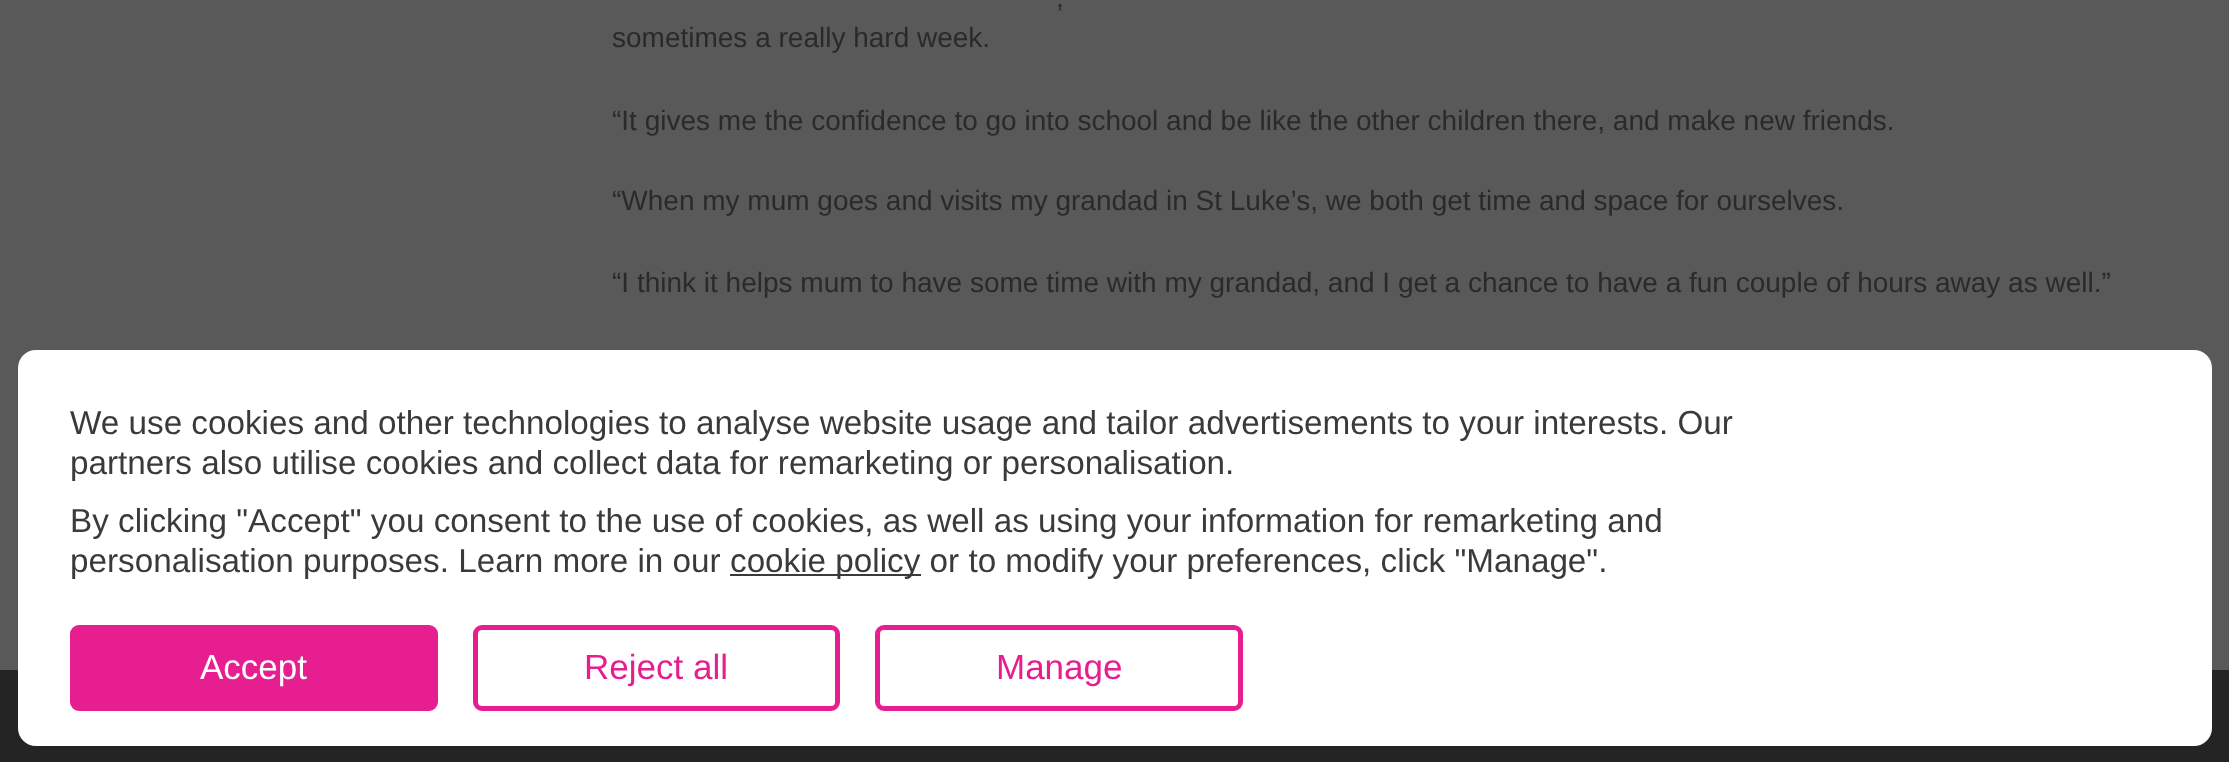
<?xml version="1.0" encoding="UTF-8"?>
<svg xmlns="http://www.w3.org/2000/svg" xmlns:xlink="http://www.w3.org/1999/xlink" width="2229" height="762">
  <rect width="100%" height="100%" fill="#595959" />
  <rect y="670" width="2229" height="92" fill="#242424" />
  <rect x="18" y="350" width="2194" height="396" rx="18" fill="#ffffff" />
  <rect x="730" y="574" width="191" height="2" fill="#3a393c" />
  <rect x="72.5" y="627.5" width="363" height="81" rx="6.5" fill="#e61e90" stroke="#e61e90" stroke-width="5" />
  <rect x="475.5" y="627.5" width="362" height="81" rx="6.5" fill="none" stroke="#e61e90" stroke-width="5" />
  <rect x="877.5" y="627.5" width="363" height="81" rx="6.5" fill="none" stroke="#e61e90" stroke-width="5" />
  <text x="1056" y="7" style="font-family: Liberation Sans; font-size: 28px; fill: #2a2a2a">,</text>
  <text x="612" y="47" style="font-family: Liberation Sans; font-size: 28px; fill: #2a2a2a">sometimes a really hard week.</text>
  <text x="612" y="130" style="font-family: Liberation Sans; font-size: 28px; fill: #2a2a2a">“It gives me the confidence to go into school and be like the other children there, and make new friends.</text>
  <text x="612" y="210" style="font-family: Liberation Sans; font-size: 28px; fill: #2a2a2a">“When my mum goes and visits my grandad in St Luke’s, we both get time and space for ourselves.</text>
  <text x="612" y="292" style="font-family: Liberation Sans; font-size: 28px; fill: #2a2a2a">“I think it helps mum to have some time with my grandad, and I get a chance to have a fun couple of hours away as well.”</text>
  <text x="70" y="434" style="font-family: Liberation Sans; font-size: 33.25px; fill: #3a393c">We use cookies and other technologies to analyse website usage and tailor advertisements to your interests. Our</text>
  <text x="70" y="474" style="font-family: Liberation Sans; font-size: 33.25px; fill: #3a393c">partners also utilise cookies and collect data for remarketing or personalisation.</text>
  <text x="70" y="532" style="font-family: Liberation Sans; font-size: 33.25px; fill: #3a393c">By clicking "Accept" you consent to the use of cookies, as well as using your information for remarketing and</text>
  <text x="70" y="572" style="font-family: Liberation Sans; font-size: 33.25px; fill: #3a393c">personalisation purposes. Learn more in our</text>
  <text x="730" y="572" style="font-family: Liberation Sans; font-size: 33.25px; fill: #3a393c">cookie policy or to modify your preferences, click "Manage".</text>
  <text x="200" y="679" style="font-family: Liberation Sans; font-size: 35px; fill: #ffffff">Accept</text>
  <text x="584" y="679" style="font-family: Liberation Sans; font-size: 35px; fill: #e61e90">Reject all</text>
  <text x="996" y="679" style="font-family: Liberation Sans; font-size: 35px; fill: #e61e90">Manage</text>
</svg>
